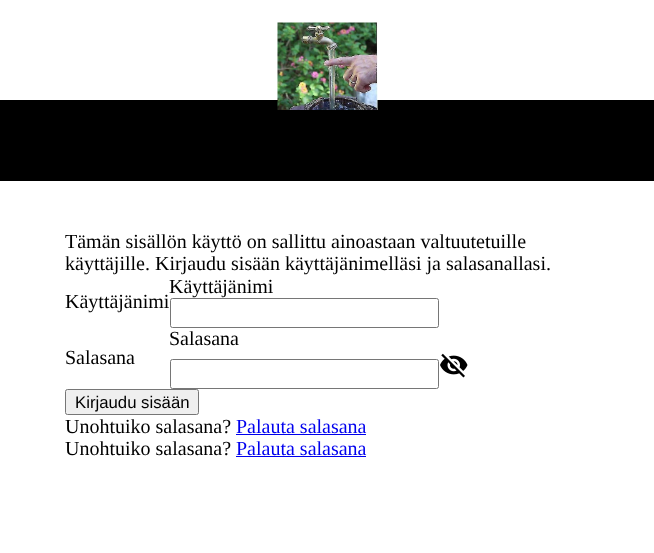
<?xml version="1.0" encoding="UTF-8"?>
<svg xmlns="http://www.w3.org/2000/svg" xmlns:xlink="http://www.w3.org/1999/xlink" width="654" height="553">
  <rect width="100%" height="100%" fill="#ffffff" />
  <rect y="100" width="654" height="81" fill="#000000" />
  <image x="277" y="22" width="101" height="88" xlink:href="image1.png" />
  <rect x="170.5" y="298.5" width="268" height="29" rx="2" fill="none" stroke="#767676" />
  <rect x="170.5" y="359.5" width="268" height="29" rx="2" fill="none" stroke="#767676" />
  <image x="440" y="353" width="28" height="25" xlink:href="image2.png" />
  <rect x="65.5" y="389.5" width="133" height="25" rx="2" fill="#efefef" stroke="#767676" />
  <rect x="236" y="434" width="130" height="1" fill="#0000ee" />
  <rect x="236" y="456" width="130" height="1" fill="#0000ee" />
  <text x="65" y="248" style="font-family: Liberation Serif; font-size: 20px; fill: #000000">Tämän sisällön käyttö on sallittu ainoastaan valtuutetuille</text>
  <text x="65" y="270" style="font-family: Liberation Serif; font-size: 20px; fill: #000000">käyttäjille. Kirjaudu sisään käyttäjänimelläsi ja salasanallasi.</text>
  <text x="169" y="293" style="font-family: Liberation Serif; font-size: 20px; fill: #000000">Käyttäjänimi</text>
  <text x="65" y="308" style="font-family: Liberation Serif; font-size: 20px; fill: #000000">Käyttäjänimi</text>
  <text x="169" y="345" style="font-family: Liberation Serif; font-size: 20px; fill: #000000">Salasana</text>
  <text x="65" y="364" style="font-family: Liberation Serif; font-size: 20px; fill: #000000">Salasana</text>
  <text x="75" y="408" style="font-family: Liberation Sans; font-size: 16.75px; fill: #000000">Kirjaudu sisään</text>
  <text x="65" y="433" style="font-family: Liberation Serif; font-size: 20px; fill: #000000">Unohtuiko salasana?</text>
  <text x="236" y="433" style="font-family: Liberation Serif; font-size: 20px; fill: #0000ee">Palauta salasana</text>
  <text x="65" y="455" style="font-family: Liberation Serif; font-size: 20px; fill: #000000">Unohtuiko salasana?</text>
  <text x="236" y="455" style="font-family: Liberation Serif; font-size: 20px; fill: #0000ee">Palauta salasana</text>
</svg>
